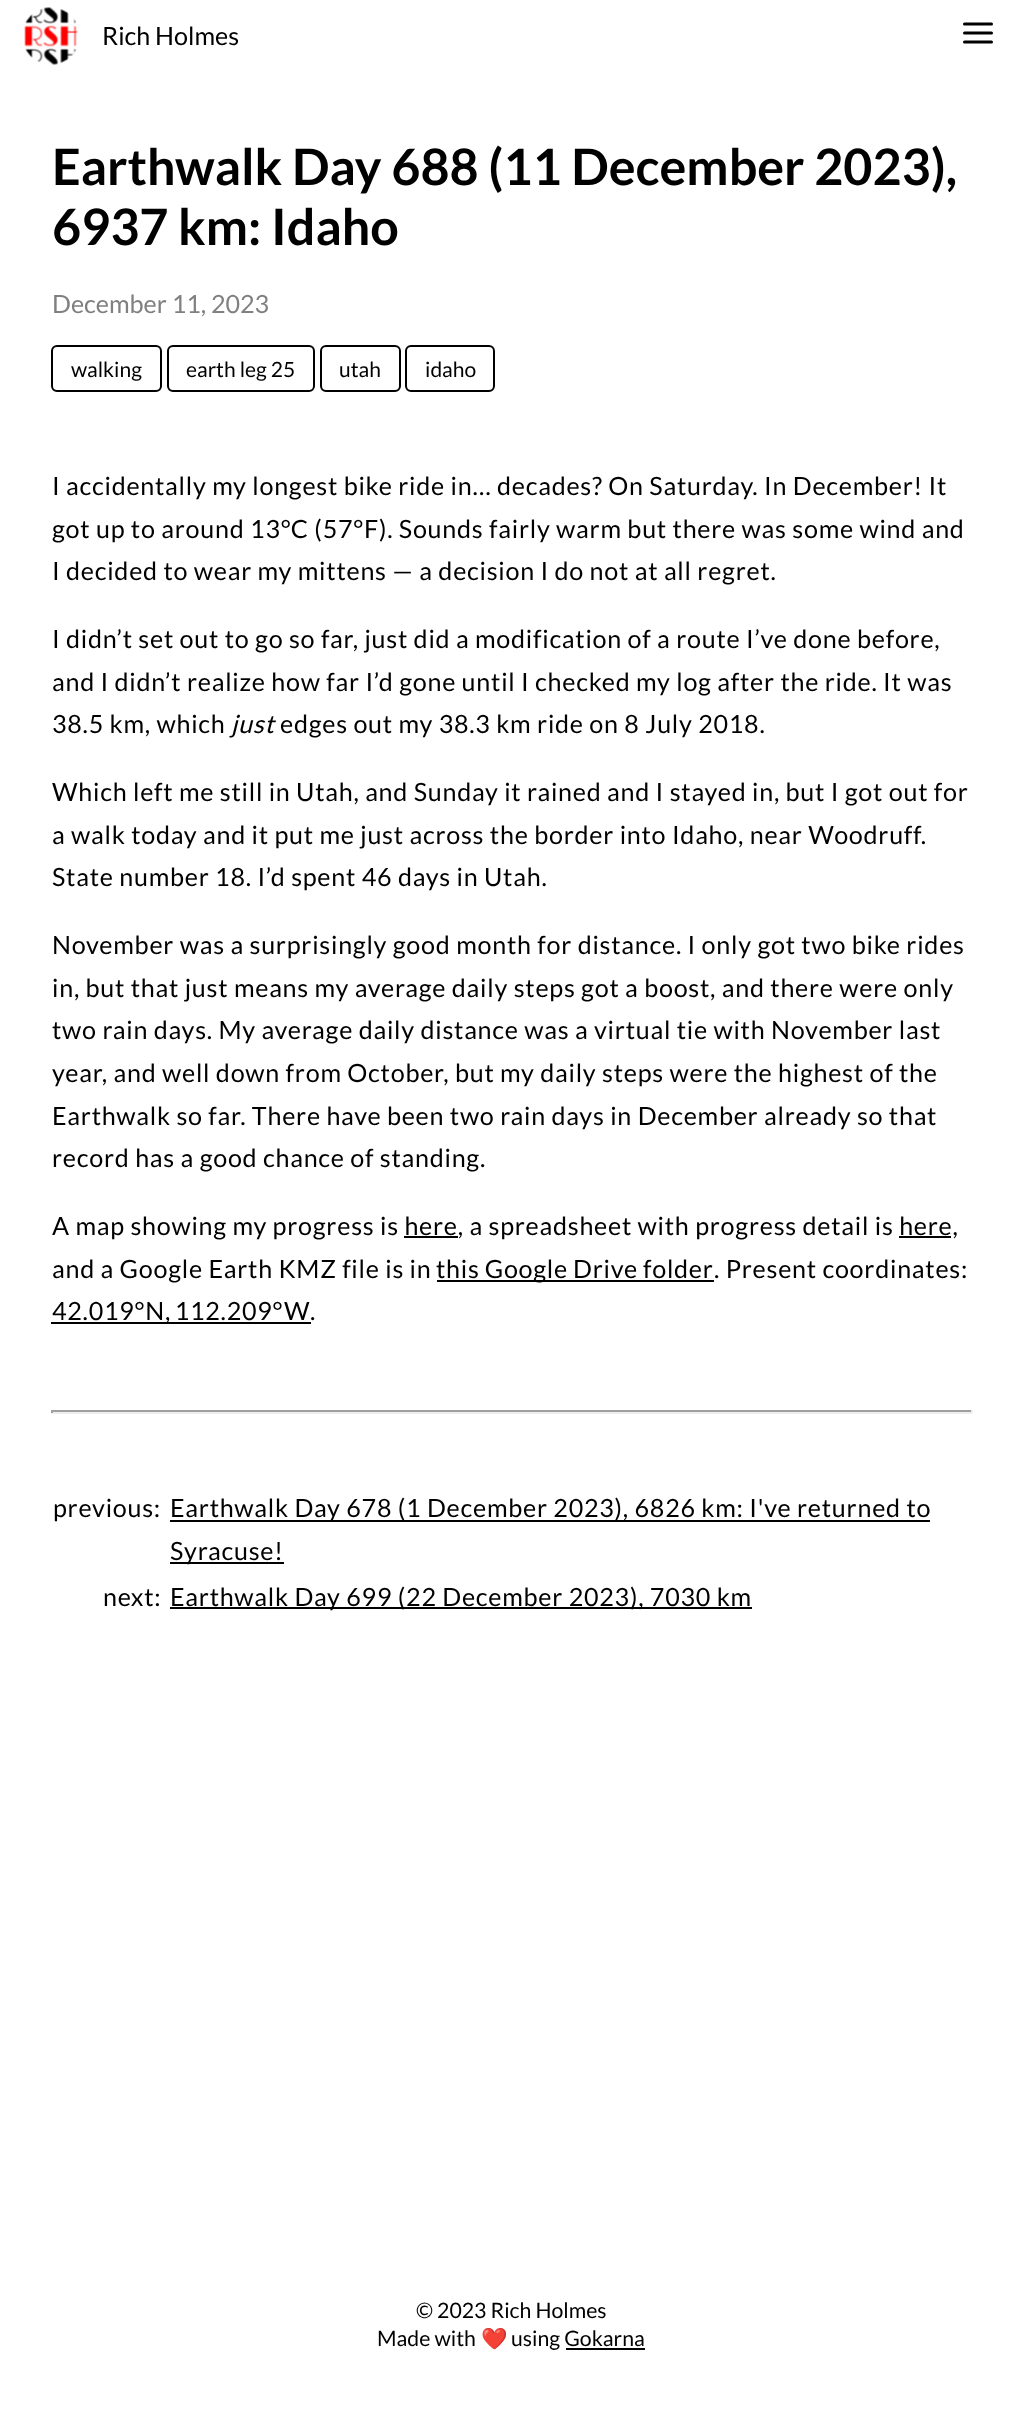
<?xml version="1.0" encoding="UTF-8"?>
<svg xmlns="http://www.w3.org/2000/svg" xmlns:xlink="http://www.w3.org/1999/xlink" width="1022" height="2411">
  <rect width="100%" height="100%" fill="#ffffff" />
  <image x="24" y="7" width="54" height="58" xlink:href="image1.png" />
  <path d="M 964.5 33 h 27 m -27 -9 h 27 m -27 18 h 27" fill="none" stroke="#000000" stroke-width="3" stroke-linecap="round" stroke-linejoin="round" />
  <rect x="52" y="346" width="109" height="45" rx="5" fill="none" stroke="#000000" stroke-width="2" />
  <rect x="168" y="346" width="146" height="45" rx="5" fill="none" stroke="#000000" stroke-width="2" />
  <rect x="321" y="346" width="79" height="45" rx="5" fill="none" stroke="#000000" stroke-width="2" />
  <rect x="406" y="346" width="88" height="45" rx="5" fill="none" stroke="#000000" stroke-width="2" />
  <rect x="404" y="1236" width="54" height="2" fill="#000000" />
  <rect x="899" y="1236" width="52" height="2" fill="#000000" />
  <rect x="437" y="1280" width="277" height="2" fill="#000000" />
  <rect x="51" y="1322" width="260" height="2" fill="#000000" />
  <rect x="51" y="1410" width="921" height="2" fill="#9f9f9f" />
  <rect x="971" y="1410" width="2" height="3" fill="#eeeeee" />
  <rect x="51" y="1412" width="921" height="2" fill="#eeeeee" />
  <rect x="51" y="1410" width="2" height="3" fill="#9f9f9f" />
  <rect x="170" y="1520" width="760" height="2" fill="#000000" />
  <rect x="170" y="1562" width="114" height="2" fill="#000000" />
  <rect x="170" y="1607" width="582" height="2" fill="#000000" />
  <rect x="566" y="2348" width="79" height="2" fill="#000000" />
  <text x="102" y="45" style="font-family: Lato; font-size: 25.1px; fill: #000000">Rich Holmes</text>
  <text x="52" y="185" style="font-family: Lato; font-size: 50.2px; font-weight: bold; fill: #000000">Earthwalk Day 688 (11 December 2023),</text>
  <text x="52" y="245" style="font-family: Lato; font-size: 50.2px; font-weight: bold; fill: #000000">6937 km: Idaho</text>
  <text x="52" y="313" style="font-family: Lato; font-size: 25.1px; fill: #808080">December 11, 2023</text>
  <text x="71" y="377" style="font-family: Lato; font-size: 21px; fill: #000000">walking</text>
  <text x="186" y="377" style="font-family: Lato; font-size: 21px; fill: #000000">earth leg 25</text>
  <text x="339" y="377" style="font-family: Lato; font-size: 21px; fill: #000000">utah</text>
  <text x="425" y="377" style="font-family: Lato; font-size: 21px; fill: #000000">idaho</text>
  <text x="52" y="495" style="font-family: Lato; font-size: 25.1px; letter-spacing: 0.75px; fill: #000000">I accidentally my longest bike ride in… decades? On Saturday. In December! It</text>
  <text x="52" y="538" style="font-family: Lato; font-size: 25.1px; letter-spacing: 0.75px; fill: #000000">got up to around 13°C (57°F). Sounds fairly warm but there was some wind and</text>
  <text x="52" y="580" style="font-family: Lato; font-size: 25.1px; letter-spacing: 0.75px; fill: #000000">I decided to wear my mittens — a decision I do not at all regret.</text>
  <text x="52" y="648" style="font-family: Lato; font-size: 25.1px; letter-spacing: 0.75px; fill: #000000">I didn’t set out to go so far, just did a modification of a route I’ve done before,</text>
  <text x="52" y="691" style="font-family: Lato; font-size: 25.1px; letter-spacing: 0.75px; fill: #000000">and I didn’t realize how far I’d gone until I checked my log after the ride. It was</text>
  <text x="52" y="733" style="font-family: Lato; font-size: 25.1px; letter-spacing: 0.75px; fill: #000000">38.5 km, which</text>
  <text x="231" y="733" style="font-family: Lato; font-size: 25.1px; font-style: italic; letter-spacing: 0.75px; fill: #000000">just</text>
  <text x="280" y="733" style="font-family: Lato; font-size: 25.1px; letter-spacing: 0.75px; fill: #000000">edges out my 38.3 km ride on 8 July 2018.</text>
  <text x="52" y="801" style="font-family: Lato; font-size: 25.1px; letter-spacing: 0.75px; fill: #000000">Which left me still in Utah, and Sunday it rained and I stayed in, but I got out for</text>
  <text x="52" y="844" style="font-family: Lato; font-size: 25.1px; letter-spacing: 0.75px; fill: #000000">a walk today and it put me just across the border into Idaho, near Woodruff.</text>
  <text x="52" y="886" style="font-family: Lato; font-size: 25.1px; letter-spacing: 0.75px; fill: #000000">State number 18. I’d spent 46 days in Utah.</text>
  <text x="52" y="954" style="font-family: Lato; font-size: 25.1px; letter-spacing: 0.75px; fill: #000000">November was a surprisingly good month for distance. I only got two bike rides</text>
  <text x="52" y="997" style="font-family: Lato; font-size: 25.1px; letter-spacing: 0.75px; fill: #000000">in, but that just means my average daily steps got a boost, and there were only</text>
  <text x="52" y="1039" style="font-family: Lato; font-size: 25.1px; letter-spacing: 0.75px; fill: #000000">two rain days. My average daily distance was a virtual tie with November last</text>
  <text x="52" y="1082" style="font-family: Lato; font-size: 25.1px; letter-spacing: 0.75px; fill: #000000">year, and well down from October, but my daily steps were the highest of the</text>
  <text x="52" y="1125" style="font-family: Lato; font-size: 25.1px; letter-spacing: 0.75px; fill: #000000">Earthwalk so far. There have been two rain days in December already so that</text>
  <text x="52" y="1167" style="font-family: Lato; font-size: 25.1px; letter-spacing: 0.75px; fill: #000000">record has a good chance of standing.</text>
  <text x="52" y="1235" style="font-family: Lato; font-size: 25.1px; letter-spacing: 0.75px; fill: #000000">A map showing my progress is here, a spreadsheet with progress detail is here,</text>
  <text x="52" y="1278" style="font-family: Lato; font-size: 25.1px; letter-spacing: 0.75px; fill: #000000">and a Google Earth KMZ file is in</text>
  <text x="436" y="1278" word-spacing="-0.5" style="font-family: Lato; font-size: 25.1px; letter-spacing: 0.75px; fill: #000000">this Google Drive folder</text>
  <text x="714" y="1278" style="font-family: Lato; font-size: 25.1px; letter-spacing: 0.75px; fill: #000000">. Present coordinates:</text>
  <text x="52" y="1320" word-spacing="-2" style="font-family: Lato; font-size: 25.1px; letter-spacing: 0.75px; fill: #000000">42.019°N, 112.209°W</text>
  <text x="310" y="1320" style="font-family: Lato; font-size: 25.1px; letter-spacing: 0.75px; fill: #000000">.</text>
  <text x="53" y="1517" style="font-family: Lato; font-size: 25.1px; letter-spacing: 0.75px; fill: #000000">previous:</text>
  <text x="170" y="1517" style="font-family: Lato; font-size: 25.1px; letter-spacing: 0.75px; fill: #000000">Earthwalk Day 678 (1 December 2023), 6826 km: I've returned to</text>
  <text x="170" y="1560" style="font-family: Lato; font-size: 25.1px; letter-spacing: 0.75px; fill: #000000">Syracuse!</text>
  <text x="103" y="1606" style="font-family: Lato; font-size: 25.1px; letter-spacing: 0.75px; fill: #000000">next:</text>
  <text x="170" y="1606" style="font-family: Lato; font-size: 25.1px; letter-spacing: 0.75px; fill: #000000">Earthwalk Day 699 (22 December 2023), 7030 km</text>
  <text x="416" y="2318" style="font-family: Lato; font-size: 21.25px; fill: #000000">© 2023 Rich Holmes</text>
  <text x="377" y="2346" style="font-family: Lato; font-size: 21.25px; fill: #000000">Made with</text>
  <text x="481" y="2346" style="font-family: Noto Color Emoji; font-size: 21.25px; fill: #000000">❤️</text>
  <text x="511" y="2346" style="font-family: Lato; font-size: 21.25px; fill: #000000">using Gokarna</text>
</svg>
